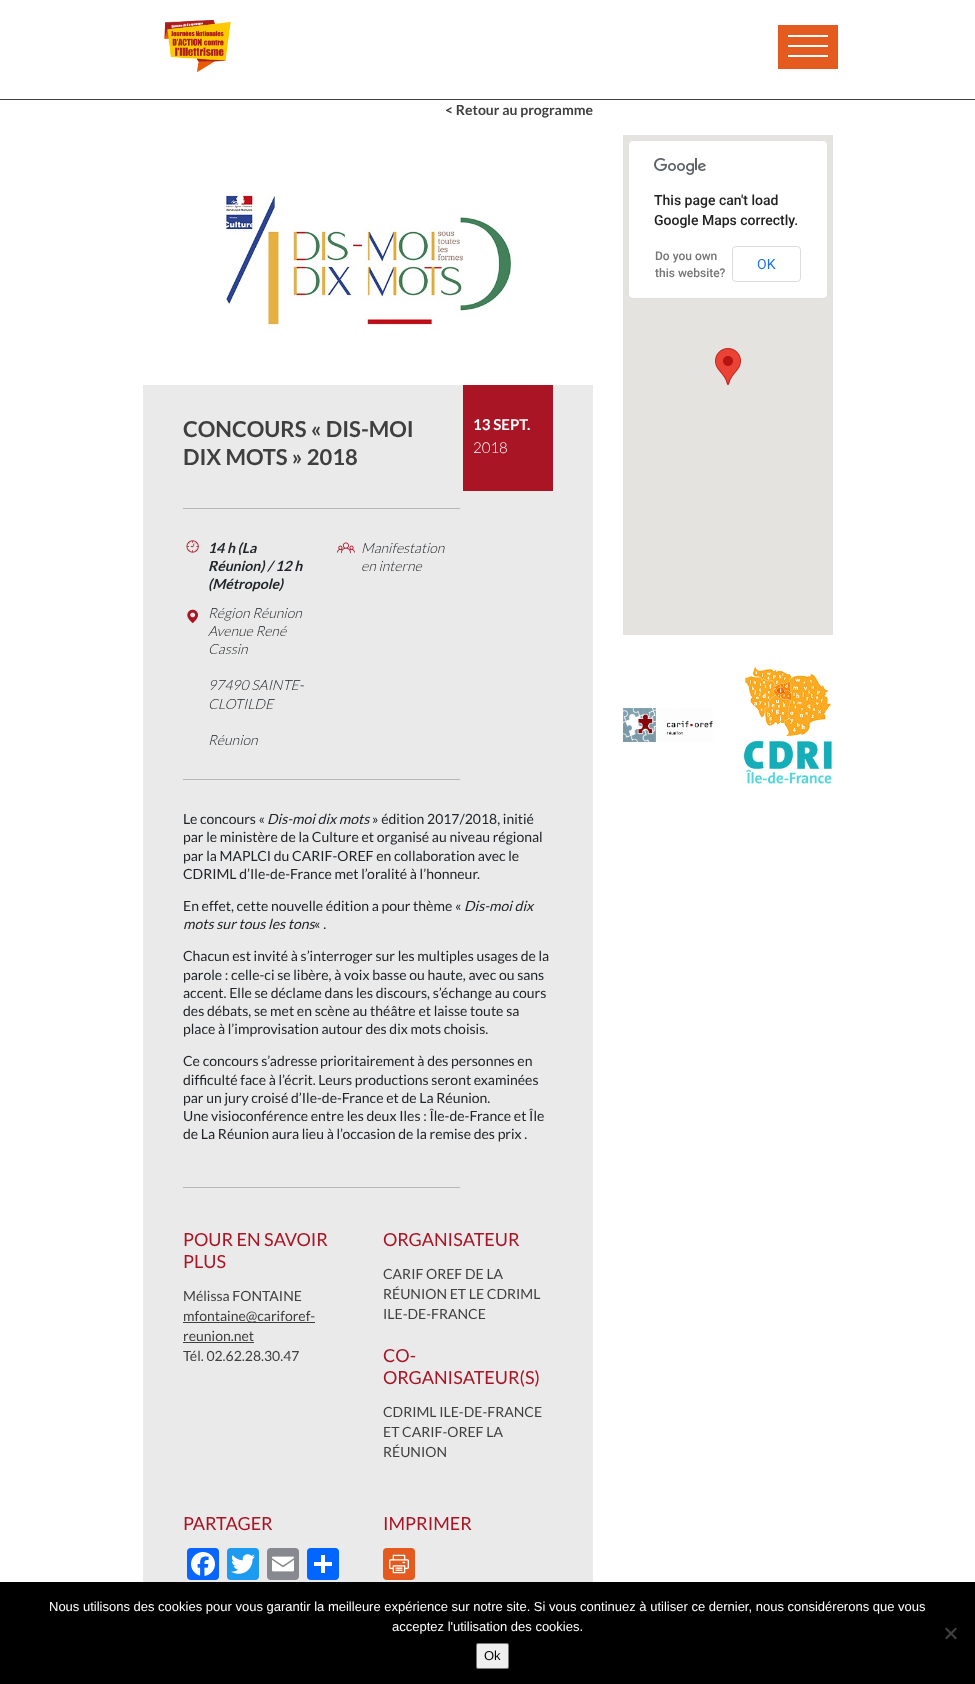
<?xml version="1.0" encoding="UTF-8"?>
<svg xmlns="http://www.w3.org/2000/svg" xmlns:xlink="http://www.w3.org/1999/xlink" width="975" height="1684">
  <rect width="100%" height="100%" fill="#ffffff" />
  <rect y="99" width="975" height="1" fill="#3f3f3f" />
  <image x="164" y="20" width="67" height="53" xlink:href="image1.png" />
  <rect x="778" y="25" width="60" height="44" fill="#e55b1f" />
  <rect x="788" y="35" width="40" height="2" fill="#ffffff" />
  <rect x="788" y="45" width="40" height="2" fill="#ffffff" />
  <rect x="788" y="55" width="40" height="2" fill="#ffffff" />
  <rect x="623" y="135" width="210" height="500" fill="#e5e3df" />
  <image x="715" y="348" width="26" height="37" xlink:href="image2.png" />
  <rect x="628" y="140" width="200" height="159" rx="5" fill="#ffffff" />
  <rect x="628.5" y="140.5" width="199" height="158" rx="4.5" fill="none" stroke="#000000" stroke-opacity="0.12" />
  <image x="654" y="158" width="52" height="17" xlink:href="image3.png" />
  <rect x="732.5" y="246.5" width="68" height="35" rx="3.5" fill="none" stroke="#dadce0" />
  <image x="623" y="708" width="90" height="34" xlink:href="image4.png" />
  <image x="743" y="667" width="89" height="117" xlink:href="image5.png" />
  <rect x="143" y="385" width="450" height="1197" fill="#eaeaea" />
  <image x="224" y="191" width="288" height="139" xlink:href="image6.png" />
  <rect x="463" y="385" width="90" height="106" fill="#aa1526" />
  <rect x="183" y="508" width="277" height="1" fill="#b7b7b7" />
  <rect x="183" y="779" width="277" height="1" fill="#b7b7b7" />
  <image x="186" y="540" width="13" height="13" xlink:href="image7.png" />
  <image x="337" y="542" width="18" height="12" xlink:href="image8.png" />
  <image x="187" y="609" width="11" height="15" xlink:href="image9.png" />
  <rect x="183" y="1187" width="277" height="1" fill="#b7b7b7" />
  <rect x="183" y="1322" width="132" height="1" fill="#3f3f3f" />
  <rect x="183" y="1342" width="71" height="1" fill="#3f3f3f" />
  <rect x="187" y="1548" width="32" height="32" rx="4" fill="#0866ff" />
  <image x="191" y="1552" width="24" height="24" xlink:href="image10.png" />
  <rect x="227" y="1548" width="32" height="32" rx="4" fill="#1d9bf0" />
  <image x="231" y="1554" width="24" height="20" xlink:href="image11.png" />
  <rect x="267" y="1548" width="32" height="32" rx="4" fill="#888990" />
  <image x="272" y="1556" width="22" height="16" xlink:href="image12.png" />
  <rect x="307" y="1548" width="32" height="32" rx="4" fill="#0166ff" />
  <rect x="321" y="1555" width="4" height="18" fill="#ffffff" />
  <rect x="314" y="1562" width="18" height="4" fill="#ffffff" />
  <rect x="383" y="1548" width="32" height="32" rx="4" fill="#e55b1f" />
  <image x="389" y="1554" width="20" height="20" xlink:href="image13.png" />
  <rect y="1582" width="975" height="102" fill="#000000" />
  <path d="M 955.5 1627.5 l 1.5 1.5 l -10.5 10.5 l -1.5 -1.5 z" fill="#404040" />
  <path d="M 945 1629 l 1.5 -1.5 l 10.5 10.5 l -1.5 1.5 z" fill="#404040" />
  <rect x="476.5" y="1643.5" width="32" height="25" rx="1.5" fill="#efefef" stroke="#767676" />
  <text x="445" y="115" style="font-family: Lato; font-size: 14px; font-weight: bold; fill: #3f3f3f">&lt; Retour au programme</text>
  <text x="654" y="205" style="font-family: Roboto; font-size: 14px; font-weight: 500; fill: #212121">This page can't load</text>
  <text x="654" y="225" style="font-family: Roboto; font-size: 14px; font-weight: 500; fill: #212121">Google Maps correctly.</text>
  <text x="655" y="260" style="font-family: Roboto; font-size: 12px; font-weight: 500; fill: #757575">Do you own</text>
  <text x="655" y="277" style="font-family: Roboto; font-size: 12px; font-weight: 500; fill: #757575">this website?</text>
  <text x="757" y="269" style="font-family: Roboto; font-size: 14px; fill: #1a73e8">OK</text>
  <text x="183" y="437" style="font-family: Lato; font-size: 22px; font-weight: bold; fill: #3f3f3f">CONCOURS « DIS-MOI</text>
  <text x="183" y="465" style="font-family: Lato; font-size: 22px; font-weight: bold; fill: #3f3f3f">DIX MOTS » 2018</text>
  <text x="473" y="430" style="font-family: Lato; font-size: 15px; font-weight: bold; fill: #ffffff">13 SEPT.</text>
  <text x="473" y="453" style="font-family: Lato; font-size: 15px; font-weight: 300; fill: #ffffff">2018</text>
  <text x="208" y="553" style="font-family: Lato; font-size: 14px; font-weight: bold; font-style: italic; fill: #212529">14 h (La</text>
  <text x="208" y="571" style="font-family: Lato; font-size: 14px; font-weight: bold; font-style: italic; fill: #212529">Réunion) / 12 h</text>
  <text x="208" y="589" style="font-family: Lato; font-size: 14px; font-weight: bold; font-style: italic; fill: #212529">(Métropole)</text>
  <text x="361" y="553" style="font-family: Lato; font-size: 14px; font-weight: 300; font-style: italic; fill: #212529">Manifestation</text>
  <text x="361" y="571" style="font-family: Lato; font-size: 14px; font-weight: 300; font-style: italic; fill: #212529">en interne</text>
  <text x="208" y="618" style="font-family: Lato; font-size: 14px; font-weight: 300; font-style: italic; fill: #212529">Région Réunion</text>
  <text x="208" y="636" style="font-family: Lato; font-size: 14px; font-weight: 300; font-style: italic; fill: #212529">Avenue René</text>
  <text x="208" y="654" style="font-family: Lato; font-size: 14px; font-weight: 300; font-style: italic; fill: #212529">Cassin</text>
  <text x="208" y="690" style="font-family: Lato; font-size: 14px; font-weight: 300; font-style: italic; fill: #212529">97490 SAINTE-</text>
  <text x="208" y="709" style="font-family: Lato; font-size: 14px; font-weight: 300; font-style: italic; fill: #212529">CLOTILDE</text>
  <text x="208" y="745" style="font-family: Lato; font-size: 14px; font-weight: 300; font-style: italic; fill: #212529">Réunion</text>
  <text x="183" y="824" style="font-family: Lato; font-size: 14px; fill: #212529">Le concours «</text>
  <text x="267" y="824" style="font-family: Lato; font-size: 14px; font-style: italic; fill: #212529">Dis-moi dix mots</text>
  <text x="372" y="824" style="font-family: Lato; font-size: 14px; fill: #212529">» édition 2017/2018, initié</text>
  <text x="183" y="842" style="font-family: Lato; font-size: 14px; fill: #212529">par le ministère de la Culture et organisé au niveau régional</text>
  <text x="183" y="861" style="font-family: Lato; font-size: 14px; fill: #212529">par la MAPLCI du CARIF-OREF en collaboration avec le</text>
  <text x="183" y="879" style="font-family: Lato; font-size: 14px; fill: #212529">CDRIML d’Ile-de-France met l’oralité à l’honneur.</text>
  <text x="183" y="911" style="font-family: Lato; font-size: 14px; fill: #212529">En effet, cette nouvelle édition a pour thème «</text>
  <text x="464" y="911" style="font-family: Lato; font-size: 14px; font-style: italic; fill: #212529">Dis-moi dix</text>
  <text x="183" y="929" style="font-family: Lato; font-size: 14px; font-style: italic; fill: #212529">mots sur tous les tons</text>
  <text x="314" y="929" style="font-family: Lato; font-size: 14px; fill: #212529">« .</text>
  <text x="183" y="961" style="font-family: Lato; font-size: 14px; fill: #212529">Chacun est invité à s’interroger sur les multiples usages de la</text>
  <text x="183" y="980" style="font-family: Lato; font-size: 14px; fill: #212529">parole : celle-ci se libère, à voix basse ou haute, avec ou sans</text>
  <text x="183" y="998" style="font-family: Lato; font-size: 14px; fill: #212529">accent. Elle se déclame dans les discours, s’échange au cours</text>
  <text x="183" y="1016" style="font-family: Lato; font-size: 14px; fill: #212529">des débats, se met en scène au théâtre et laisse toute sa</text>
  <text x="183" y="1034" style="font-family: Lato; font-size: 14px; fill: #212529">place à l’improvisation autour des dix mots choisis.</text>
  <text x="183" y="1066" style="font-family: Lato; font-size: 14px; fill: #212529">Ce concours s’adresse prioritairement à des personnes en</text>
  <text x="183" y="1085" style="font-family: Lato; font-size: 14px; fill: #212529">difficulté face à l’écrit. Leurs productions seront examinées</text>
  <text x="183" y="1103" style="font-family: Lato; font-size: 14px; fill: #212529">par un jury croisé d’Ile-de-France et de La Réunion.</text>
  <text x="183" y="1121" style="font-family: Lato; font-size: 14px; fill: #212529">Une visioconférence entre les deux Iles : Île-de-France et Île</text>
  <text x="183" y="1139" style="font-family: Lato; font-size: 14px; fill: #212529">de La Réunion aura lieu à l’occasion de la remise des prix .</text>
  <text x="183" y="1246" style="font-family: Lato; font-size: 18px; fill: #aa1526">POUR EN SAVOIR</text>
  <text x="183" y="1268" style="font-family: Lato; font-size: 18px; fill: #aa1526">PLUS</text>
  <text x="183" y="1301" style="font-family: Lato; font-size: 14px; fill: #3f3f3f">Mélissa FONTAINE</text>
  <text x="183" y="1321" style="font-family: Lato; font-size: 14px; fill: #3f3f3f">mfontaine@cariforef-</text>
  <text x="183" y="1341" style="font-family: Lato; font-size: 14px; fill: #3f3f3f">reunion.net</text>
  <text x="183" y="1361" style="font-family: Lato; font-size: 14px; fill: #3f3f3f">Tél. 02.62.28.30.47</text>
  <text x="383" y="1246" style="font-family: Lato; font-size: 18px; fill: #aa1526">ORGANISATEUR</text>
  <text x="383" y="1279" style="font-family: Lato; font-size: 14px; fill: #3f3f3f">CARIF OREF DE LA</text>
  <text x="383" y="1299" style="font-family: Lato; font-size: 14px; fill: #3f3f3f">RÉUNION ET LE CDRIML</text>
  <text x="383" y="1319" style="font-family: Lato; font-size: 14px; fill: #3f3f3f">ILE-DE-FRANCE</text>
  <text x="383" y="1362" style="font-family: Lato; font-size: 18px; fill: #aa1526">CO-</text>
  <text x="383" y="1384" style="font-family: Lato; font-size: 18px; fill: #aa1526">ORGANISATEUR(S)</text>
  <text x="383" y="1417" style="font-family: Lato; font-size: 14px; fill: #3f3f3f">CDRIML ILE-DE-FRANCE</text>
  <text x="383" y="1437" style="font-family: Lato; font-size: 14px; fill: #3f3f3f">ET CARIF-OREF LA</text>
  <text x="383" y="1457" style="font-family: Lato; font-size: 14px; fill: #3f3f3f">RÉUNION</text>
  <text x="183" y="1530" style="font-family: Lato; font-size: 18px; fill: #aa1526">PARTAGER</text>
  <text x="383" y="1530" style="font-family: Lato; font-size: 18px; fill: #aa1526">IMPRIMER</text>
  <text x="49" y="1611" style="font-family: Liberation Sans; font-size: 13px; fill: #ffffff">Nous utilisons des cookies pour vous garantir la meilleure expérience sur notre site. Si vous continuez à utiliser ce dernier, nous considérerons que vous</text>
  <text x="392" y="1631" style="font-family: Liberation Sans; font-size: 13px; fill: #ffffff">acceptez l'utilisation des cookies.</text>
  <text x="484" y="1660" style="font-family: Liberation Sans; font-size: 13px; fill: #000000">Ok</text>
</svg>
